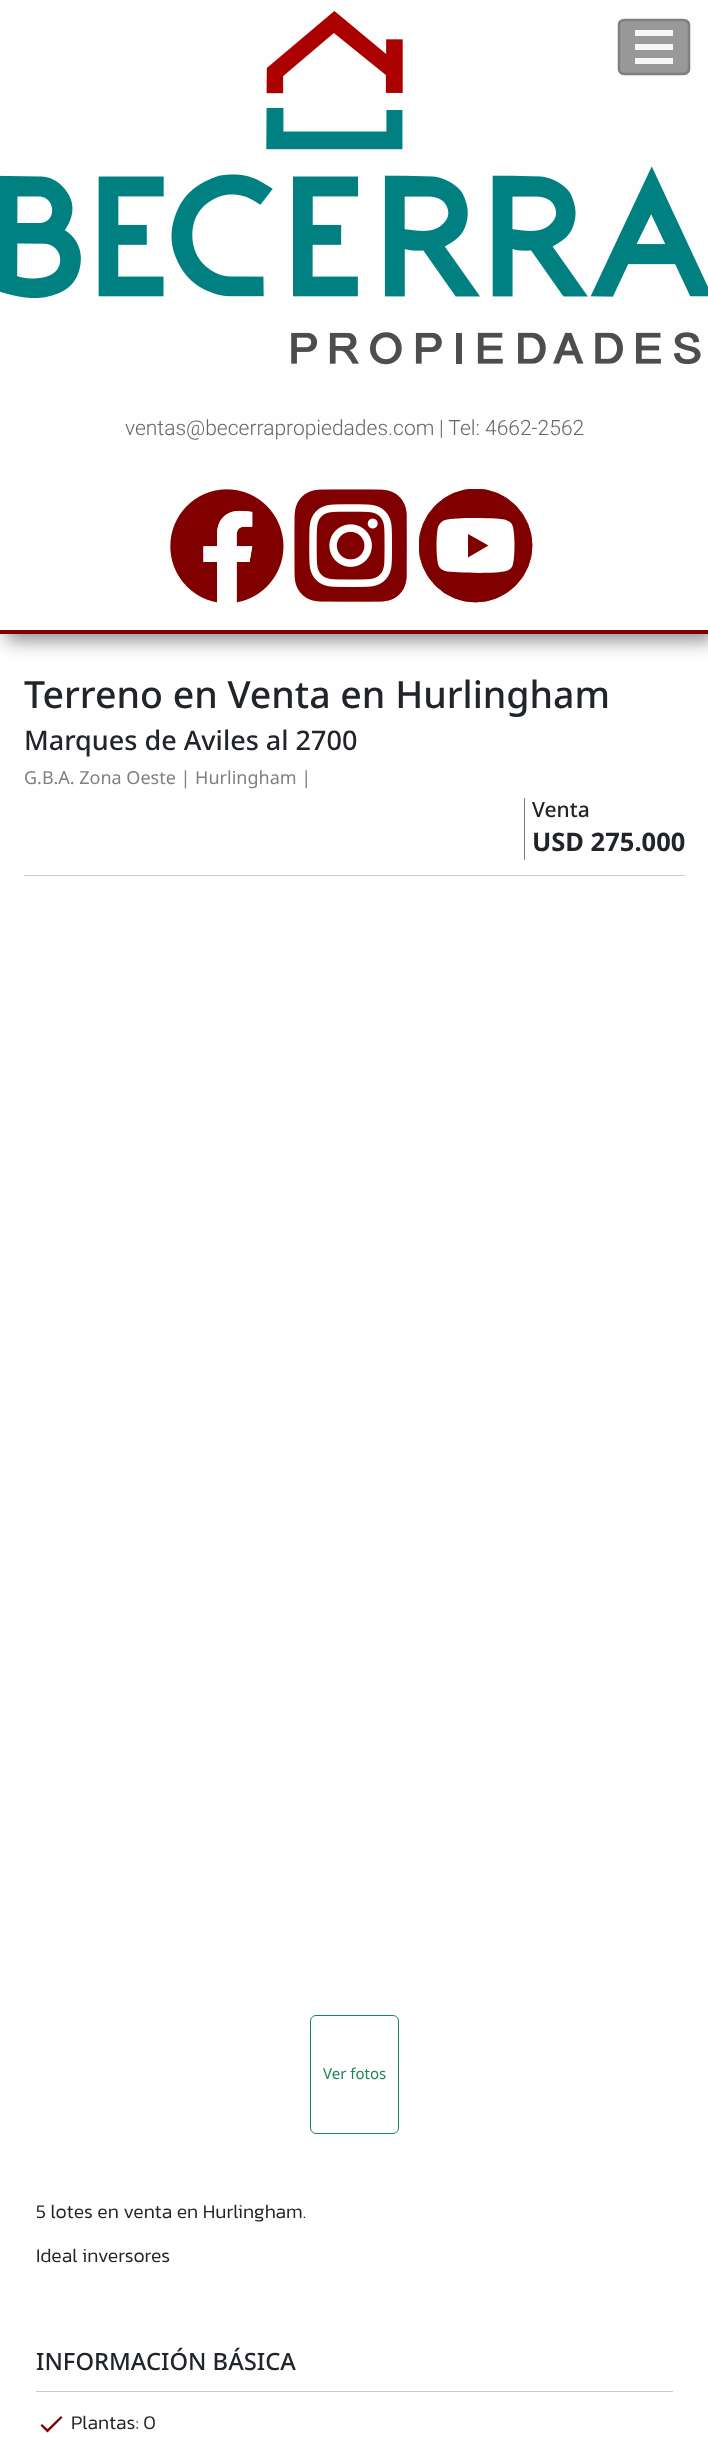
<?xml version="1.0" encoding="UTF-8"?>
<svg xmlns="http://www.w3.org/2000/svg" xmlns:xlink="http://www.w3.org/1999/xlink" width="708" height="2460">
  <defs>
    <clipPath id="clip1"><rect x="419" y="489" width="114" height="114" /></clipPath>
  </defs>
  <rect width="100%" height="100%" fill="#ffffff" />
  <rect x="6" y="6" width="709" height="634" fill="#888888" filter="blur(9.5px)" />
  <rect width="708" height="630" fill="#fefefe" />
  <rect y="630" width="708" height="4" fill="#800000" />
  <image x="0" y="11" width="708" height="354" xlink:href="image1.png" />
  <path d="M 625 19 h 58 c 4 0 7 2 7 5 v 45 c 0 3 -3 6 -7 6 h -58 c -4 0 -7 -3 -7 -6 v -45 c 0 -3 3 -5 7 -5 z" fill="#999999" />
  <path d="M 625 20 h 58 c 3 0 6 2 6 4.5 v 45 c 0 2.5 -3 4.5 -6 4.5 h -58 c -3.5 0 -6 -2 -6 -4.5 v -45 c 0 -2.5 2.5 -4.5 6 -4.5 z" fill="none" stroke="#7f7f7f" stroke-width="2.5" />
  <rect x="635" y="30" width="38" height="6" fill="#f6f6f6" />
  <rect x="635" y="44" width="38" height="6" fill="#f6f6f6" />
  <rect x="635" y="58" width="38" height="6" fill="#f6f6f6" />
  <image x="170" y="489" width="114" height="114" xlink:href="image2.png" />
  <image x="294" y="489" width="113" height="113" xlink:href="image3.png" />
  <circle cx="475.5" cy="545.5" r="56.5" fill="#800000" />
  <g clip-path="url(#clip1)">
    <circle cx="475.5" cy="545.5" r="56.5" fill="none" stroke="#800000" />
  </g>
  <path d="M 513 527 c -1 -4 -4 -6 -7 -7 c -4 -2 -48 -3 -61 0 c -3 1 -6 4 -7 7 c -2 9 -2 28 0 37 c 1 4 4 6 7 7 c 9 2 52 3 61 0 c 4 -1 6 -3 7 -7 c 2 -9 2 -28 0 -37 z" fill="#ffffff" />
  <path d="M 488.5 545.5 l -20.5 -11.5 v 23.5 z" fill="#800000" />
  <rect x="524" y="798" width="1" height="62" fill="#808080" />
  <rect x="24" y="875" width="661" height="1" fill="#c8c9ca" />
  <rect x="310.5" y="2015.5" width="88" height="118" rx="5.5" fill="none" stroke="#198754" />
  <rect x="36" y="2391" width="637" height="1" fill="#c8c9ca" />
  <path d="M 47.5 2429 l -5.5 -5 l -1.5 1.5 l 7 7 l 15 -15 l -1.5 -1.5 z" fill="#800000" />
  <text x="125" y="435" style="font-family: Roboto; font-size: 21px; font-weight: 300; fill: #666666">ventas@becerrapropiedades.com</text>
  <text x="439" y="435" style="font-family: Roboto; font-size: 21px; font-weight: 300; fill: #666666">| Tel: 4662-2562</text>
  <text x="24" y="708" style="font-family: Noto Sans; font-size: 37.5px; font-weight: 500; fill: #212529">Terreno en Venta en Hurlingham</text>
  <text x="24" y="750" style="font-family: Noto Sans; font-size: 27px; font-weight: 500; fill: #212529">Marques de Aviles al 2700</text>
  <text x="24" y="784" style="font-family: Noto Sans; font-size: 18px; fill: #808080">G.B.A. Zona Oeste | Hurlingham |</text>
  <text x="532" y="817" style="font-family: Noto Sans; font-size: 21px; font-weight: 500; fill: #212529">Venta</text>
  <text x="532" y="851" style="font-family: Noto Sans; font-size: 25.5px; font-weight: bold; fill: #212529">USD 275.000</text>
  <text x="323" y="2079" style="font-family: Noto Sans; font-size: 15px; fill: #198754">Ver fotos</text>
  <text x="36" y="2218" style="font-family: Kanit; font-size: 19.5px; font-weight: 300; fill: #212529">5 lotes en venta en Hurlingham.</text>
  <text x="36" y="2262" style="font-family: Kanit; font-size: 19.5px; font-weight: 300; fill: #212529">Ideal inversores</text>
  <text x="36" y="2370" style="font-family: Noto Sans; font-size: 23.75px; font-weight: 500; fill: #212529">INFORMACIÓN BÁSICA</text>
  <text x="71" y="2429" style="font-family: Kanit; font-size: 19.5px; font-weight: 300; fill: #212529">Plantas: 0</text>
</svg>
